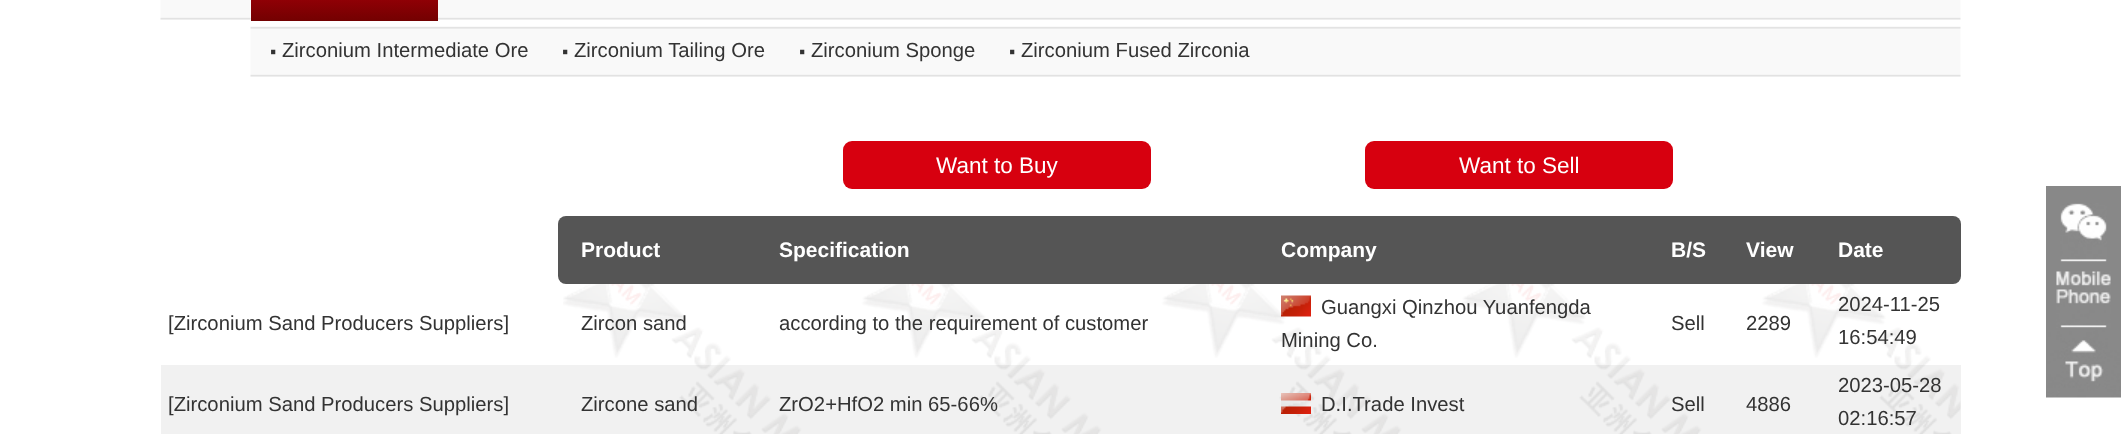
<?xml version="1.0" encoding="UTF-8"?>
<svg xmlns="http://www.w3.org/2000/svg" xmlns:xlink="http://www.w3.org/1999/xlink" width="2121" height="434">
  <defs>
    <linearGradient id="g1" gradientUnits="userSpaceOnUse" x1="344" y1="-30" x2="344" y2="21"><stop offset="0" stop-color="#d7000f" /><stop offset="0.5" stop-color="#950006" /><stop offset="1" stop-color="#730101" /></linearGradient>
  </defs>
  <rect width="100%" height="100%" fill="#ffffff" />
  <image x="160" y="0" width="91" height="20" xlink:href="image1.png" />
  <image x="250" y="0" width="1711" height="77" xlink:href="image2.png" />
  <rect x="251" width="187" height="21" fill="url(#g1)" />
  <rect x="161" y="365" width="397" height="69" fill="#f1f1f1" />
  <rect x="843" y="141" width="308" height="48" rx="9" fill="#d7000f" />
  <rect x="1365" y="141" width="308" height="48" rx="9" fill="#d7000f" />
  <image x="563" y="284" width="1398" height="150" xlink:href="image3.png" />
  <rect x="558" y="216" width="1403" height="68" rx="8" fill="#555555" />
  <image x="1281" y="295" width="30" height="22" xlink:href="image4.png" />
  <rect x="558" y="365" width="1403" height="69" fill="#0f0f0f" fill-opacity="0.06" />
  <image x="1281" y="393" width="30" height="21" xlink:href="image5.png" />
  <rect x="2046" y="186" width="75" height="144" fill="#888888" />
  <image x="2060" y="203" width="47" height="59" xlink:href="image6.png" />
  <image x="2056" y="271" width="55" height="57" xlink:href="image7.png" />
  <image x="2046" y="330" width="75" height="68" xlink:href="image8.png" />
  <text x="269" y="62" style="font-family: Liberation Sans; font-size: 30px; font-weight: bold; fill: #333333">·</text>
  <text x="282" y="57" style="font-family: Liberation Sans; font-size: 20.25px; fill: #333333">Zirconium Intermediate Ore</text>
  <text x="561" y="62" style="font-family: Liberation Sans; font-size: 30px; font-weight: bold; fill: #333333">·</text>
  <text x="574" y="57" style="font-family: Liberation Sans; font-size: 20.25px; fill: #333333">Zirconium Tailing Ore</text>
  <text x="798" y="62" style="font-family: Liberation Sans; font-size: 30px; font-weight: bold; fill: #333333">·</text>
  <text x="811" y="57" style="font-family: Liberation Sans; font-size: 20.25px; fill: #333333">Zirconium Sponge</text>
  <text x="1008" y="62" style="font-family: Liberation Sans; font-size: 30px; font-weight: bold; fill: #333333">·</text>
  <text x="1021" y="57" style="font-family: Liberation Sans; font-size: 20.25px; fill: #333333">Zirconium Fused Zirconia</text>
  <text x="168" y="330" style="font-family: Liberation Sans; font-size: 20.25px; fill: #333333">[Zirconium Sand Producers Suppliers]</text>
  <text x="168" y="411" style="font-family: Liberation Sans; font-size: 20.25px; fill: #333333">[Zirconium Sand Producers Suppliers]</text>
  <text x="936" y="173" style="font-family: Liberation Sans; font-size: 22.5px; fill: #ffffff">Want to Buy</text>
  <text x="1459" y="173" style="font-family: Liberation Sans; font-size: 22.5px; fill: #ffffff">Want to Sell</text>
  <text x="581" y="257" style="font-family: Liberation Sans; font-size: 21px; font-weight: bold; fill: #ffffff">Product</text>
  <text x="779" y="257" style="font-family: Liberation Sans; font-size: 21px; font-weight: bold; fill: #ffffff">Specification</text>
  <text x="1281" y="257" style="font-family: Liberation Sans; font-size: 21px; font-weight: bold; fill: #ffffff">Company</text>
  <text x="1671" y="257" style="font-family: Liberation Sans; font-size: 21px; font-weight: bold; fill: #ffffff">B/S</text>
  <text x="1746" y="257" style="font-family: Liberation Sans; font-size: 21px; font-weight: bold; fill: #ffffff">View</text>
  <text x="1838" y="257" style="font-family: Liberation Sans; font-size: 21px; font-weight: bold; fill: #ffffff">Date</text>
  <text x="581" y="330" style="font-family: Liberation Sans; font-size: 20.25px; fill: #333333">Zircon sand</text>
  <text x="779" y="330" style="font-family: Liberation Sans; font-size: 20.25px; fill: #333333">according to the requirement of customer</text>
  <text x="1321" y="314" style="font-family: Liberation Sans; font-size: 20.25px; fill: #333333">Guangxi Qinzhou Yuanfengda</text>
  <text x="1281" y="347" style="font-family: Liberation Sans; font-size: 20.25px; fill: #333333">Mining Co.</text>
  <text x="1671" y="330" style="font-family: Liberation Sans; font-size: 20.25px; fill: #333333">Sell</text>
  <text x="1746" y="330" style="font-family: Liberation Sans; font-size: 20.25px; fill: #333333">2289</text>
  <text x="1838" y="311" style="font-family: Liberation Sans; font-size: 20.25px; fill: #333333">2024-11-25</text>
  <text x="1838" y="344" style="font-family: Liberation Sans; font-size: 20.25px; fill: #333333">16:54:49</text>
  <text x="581" y="411" style="font-family: Liberation Sans; font-size: 20.25px; fill: #333333">Zircone sand</text>
  <text x="779" y="411" style="font-family: Liberation Sans; font-size: 20.25px; fill: #333333">ZrO2+HfO2 min 65-66%</text>
  <text x="1321" y="411" style="font-family: Liberation Sans; font-size: 20.25px; fill: #333333">D.I.Trade Invest</text>
  <text x="1671" y="411" style="font-family: Liberation Sans; font-size: 20.25px; fill: #333333">Sell</text>
  <text x="1746" y="411" style="font-family: Liberation Sans; font-size: 20.25px; fill: #333333">4886</text>
  <text x="1838" y="392" style="font-family: Liberation Sans; font-size: 20.25px; fill: #333333">2023-05-28</text>
  <text x="1838" y="425" style="font-family: Liberation Sans; font-size: 20.25px; fill: #333333">02:16:57</text>
</svg>
